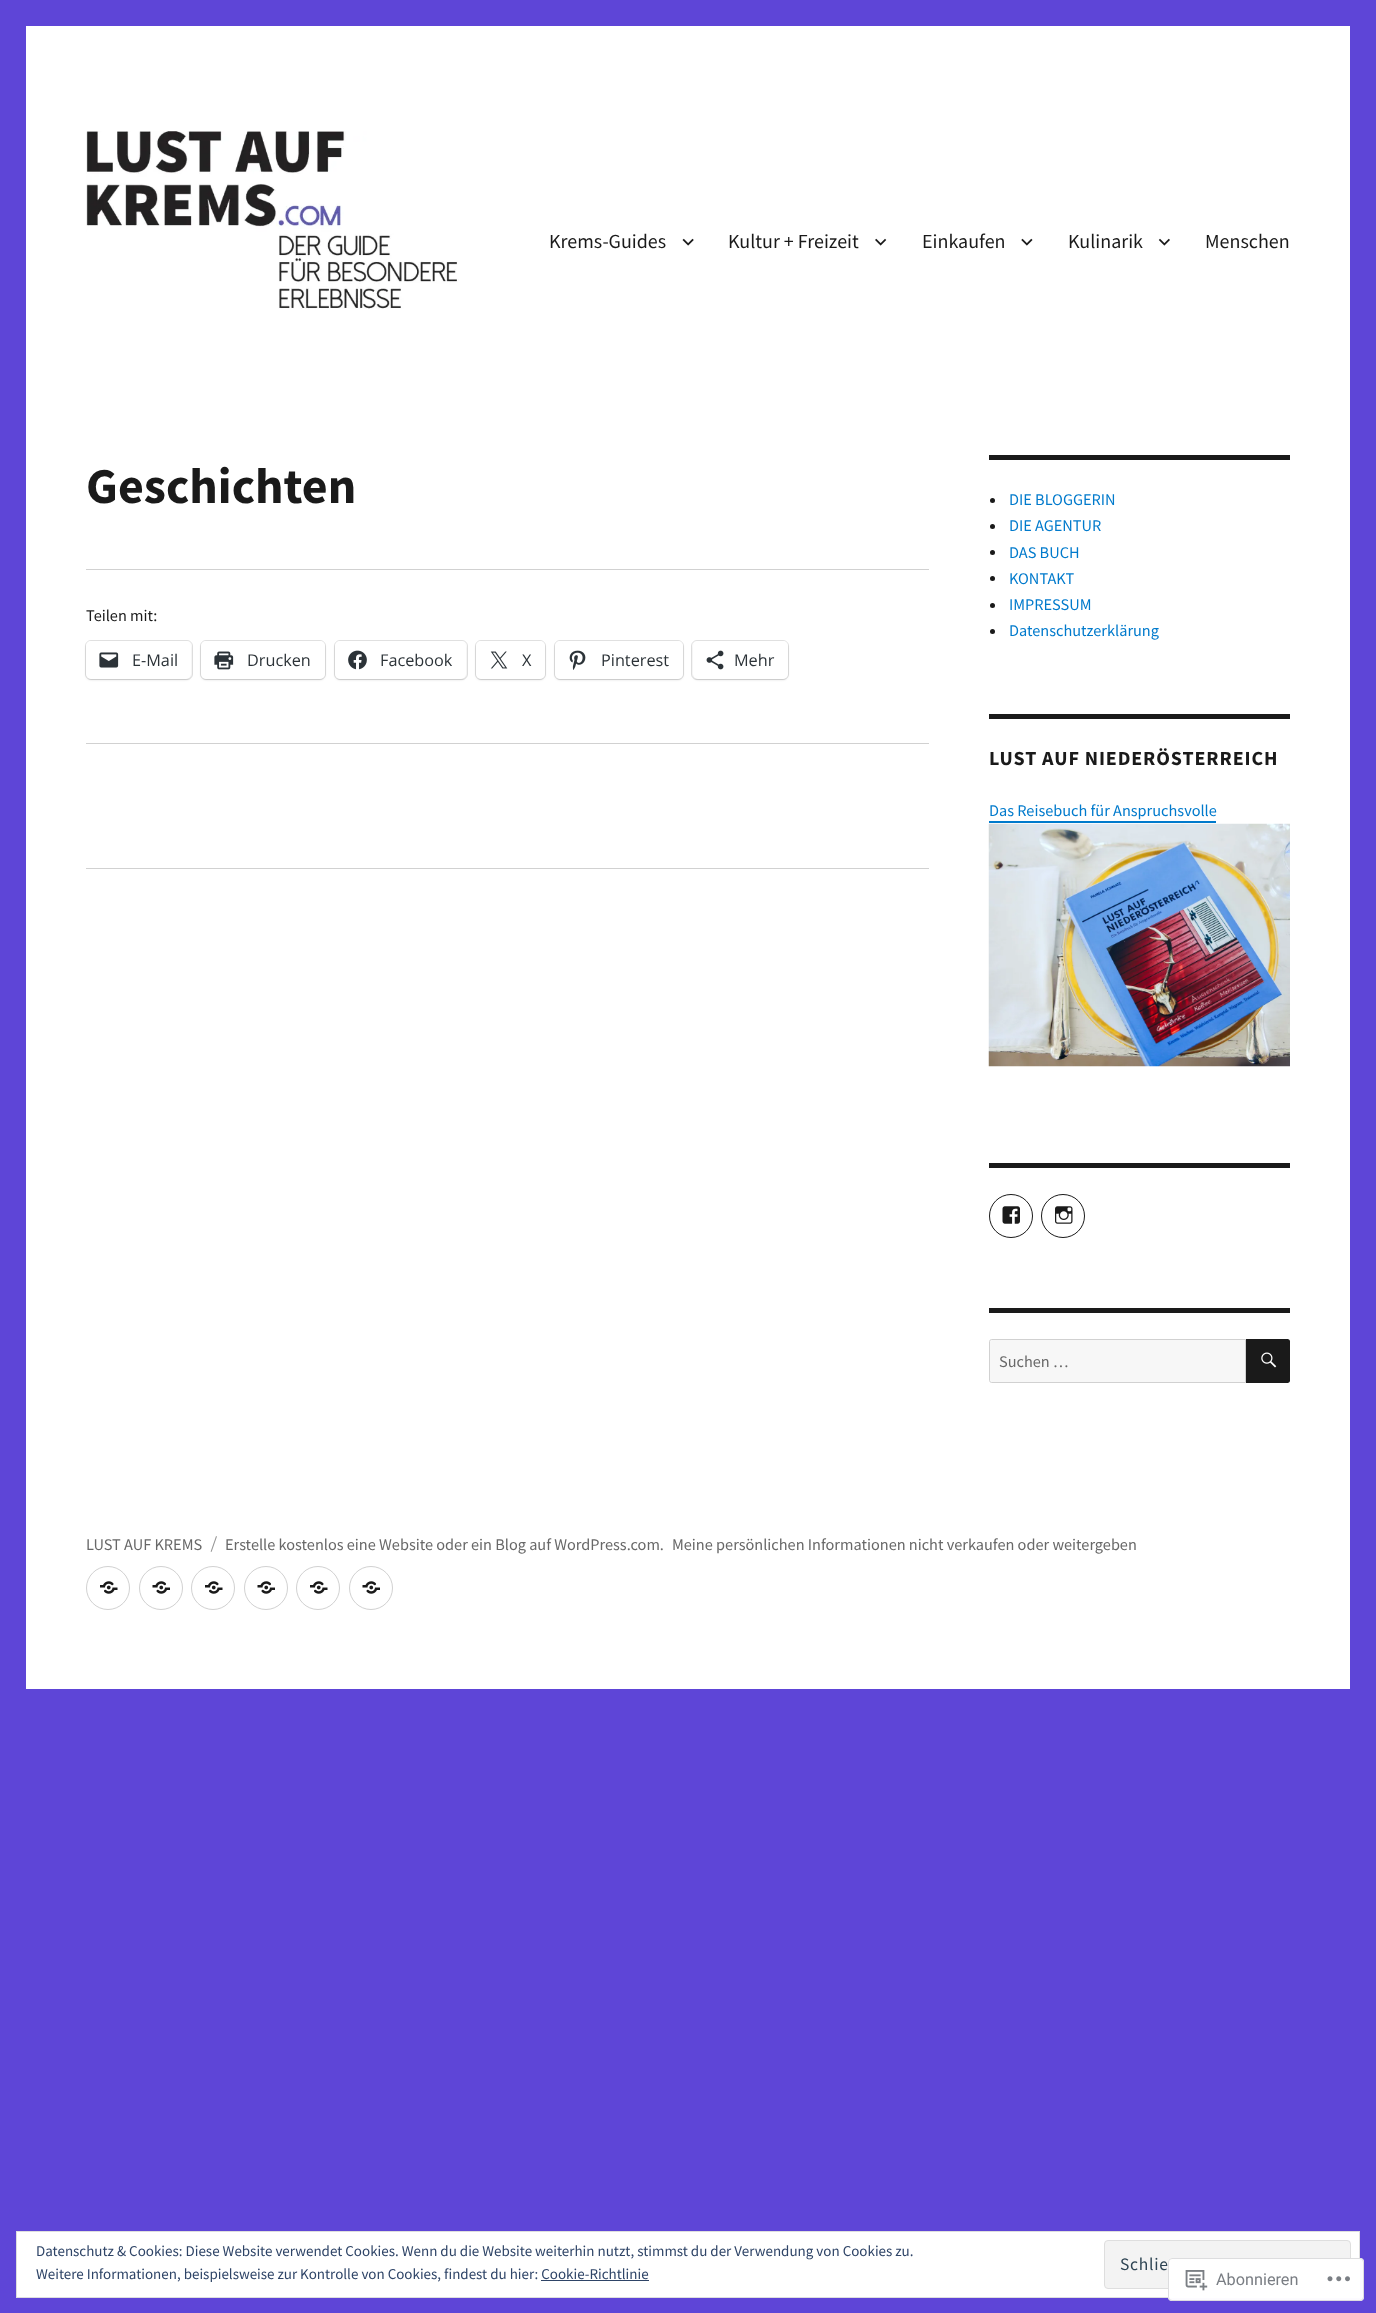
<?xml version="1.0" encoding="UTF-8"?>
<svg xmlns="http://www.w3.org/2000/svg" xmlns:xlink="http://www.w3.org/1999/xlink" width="1376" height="2313">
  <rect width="100%" height="100%" fill="#5e45d7" />
  <rect x="26" y="26" width="1324" height="1663" fill="#ffffff" />
  <image x="86" y="131" width="373" height="178" xlink:href="image1.png" />
  <image x="682" y="238" width="12" height="8" xlink:href="image2.png" />
  <image x="875" y="238" width="12" height="8" xlink:href="image3.png" />
  <image x="1021" y="238" width="12" height="8" xlink:href="image4.png" />
  <image x="1158" y="238" width="12" height="8" xlink:href="image5.png" />
  <rect x="86" y="569" width="843" height="1" fill="#d1d1d1" />
  <rect x="85.5" y="640.5" width="107" height="39" rx="5.5" fill="none" stroke="#e0e0e0" />
  <rect x="86" y="643" width="105" height="37" rx="5" fill="#000000" fill-opacity="0.12" filter="blur(1px)" />
  <rect x="86" y="641" width="105" height="38" rx="5" fill="#ffffff" />
  <image x="99" y="652" width="20" height="16" xlink:href="image6.png" />
  <rect x="200.5" y="640.5" width="125" height="39" rx="5.5" fill="none" stroke="#e0e0e0" />
  <rect x="201" y="643" width="124" height="37" rx="5" fill="#000000" fill-opacity="0.12" filter="blur(1px)" />
  <rect x="201" y="641" width="124" height="38" rx="5" fill="#ffffff" />
  <image x="214" y="651" width="20" height="19" xlink:href="image7.png" />
  <rect x="334.5" y="640.5" width="133" height="39" rx="5.5" fill="none" stroke="#e0e0e0" />
  <rect x="335" y="643" width="131" height="37" rx="5" fill="#000000" fill-opacity="0.12" filter="blur(1px)" />
  <rect x="335" y="641" width="131" height="38" rx="5" fill="#ffffff" />
  <image x="348" y="650" width="19" height="20" xlink:href="image8.png" />
  <rect x="475.5" y="640.5" width="70" height="39" rx="5.5" fill="none" stroke="#e0e0e0" />
  <rect x="476" y="643" width="69" height="37" rx="5" fill="#000000" fill-opacity="0.12" filter="blur(1px)" />
  <rect x="476" y="641" width="69" height="38" rx="5" fill="#ffffff" />
  <image x="490" y="651" width="18" height="18" xlink:href="image9.png" />
  <rect x="554.5" y="640.5" width="129" height="39" rx="5.5" fill="none" stroke="#e0e0e0" />
  <rect x="555" y="643" width="128" height="37" rx="5" fill="#000000" fill-opacity="0.12" filter="blur(1px)" />
  <rect x="555" y="641" width="128" height="38" rx="5" fill="#ffffff" />
  <image x="569" y="650" width="17" height="20" xlink:href="image10.png" />
  <rect x="691.5" y="640.5" width="97" height="39" rx="5.5" fill="none" stroke="#e0e0e0" />
  <rect x="693" y="643" width="95" height="37" rx="5" fill="#000000" fill-opacity="0.12" filter="blur(1px)" />
  <rect x="693" y="641" width="95" height="38" rx="5" fill="#ffffff" />
  <image x="706" y="650" width="18" height="20" xlink:href="image11.png" />
  <rect x="86" y="743" width="843" height="1" fill="#d1d1d1" />
  <rect x="86" y="868" width="843" height="1" fill="#d1d1d1" />
  <rect x="989" y="455" width="301" height="5" fill="#1a1a1a" />
  <circle cx="992.5" cy="500.5" r="2.5" fill="#1a1a1a" />
  <circle cx="992.5" cy="526.5" r="2.5" fill="#1a1a1a" />
  <circle cx="992.5" cy="552.5" r="2.5" fill="#1a1a1a" />
  <circle cx="992.5" cy="578.5" r="2.5" fill="#1a1a1a" />
  <circle cx="992.5" cy="605.5" r="2.5" fill="#1a1a1a" />
  <circle cx="992.5" cy="631.5" r="2.5" fill="#1a1a1a" />
  <rect x="989" y="714" width="301" height="5" fill="#1a1a1a" />
  <rect x="989" y="821" width="227" height="2" fill="#007acc" />
  <image x="988" y="823" width="302" height="244" xlink:href="image12.png" />
  <rect x="989" y="1163" width="301" height="5" fill="#1a1a1a" />
  <circle cx="1011" cy="1216" r="21.5" fill="none" stroke="#1a1a1a" />
  <image x="1002" y="1206" width="18" height="18" xlink:href="image13.png" />
  <circle cx="1063" cy="1216" r="21.5" fill="none" stroke="#1a1a1a" />
  <image x="1055" y="1206" width="18" height="18" xlink:href="image14.png" />
  <rect x="989" y="1308" width="301" height="5" fill="#1a1a1a" />
  <path d="M 991.5 1339.5 h 254 v 43 h -254 c -1 0 -2 -1 -2 -2 v -39 c 0 -1 1 -2 2 -2 z" fill="#f7f7f7" stroke="#d1d1d1" />
  <path d="M 1246 1339 h 41.5 c 1.5 0 2.5 1 2.5 2.5 v 39 c 0 1.5 -1 2.5 -2.5 2.5 h -41.5 z" fill="#1a1a1a" />
  <image x="1261" y="1352" width="16" height="16" xlink:href="image15.png" />
  <circle cx="108" cy="1588" r="21.5" fill="none" stroke="#d1d1d1" />
  <image x="100" y="1581" width="18" height="13" xlink:href="image16.png" />
  <circle cx="161" cy="1588" r="21.5" fill="none" stroke="#d1d1d1" />
  <image x="152" y="1581" width="18" height="13" xlink:href="image17.png" />
  <circle cx="213" cy="1588" r="21.5" fill="none" stroke="#d1d1d1" />
  <image x="205" y="1581" width="18" height="13" xlink:href="image16.png" />
  <circle cx="266" cy="1588" r="21.5" fill="none" stroke="#d1d1d1" />
  <image x="257" y="1581" width="18" height="13" xlink:href="image17.png" />
  <circle cx="318" cy="1588" r="21.5" fill="none" stroke="#d1d1d1" />
  <image x="310" y="1581" width="18" height="13" xlink:href="image16.png" />
  <circle cx="371" cy="1588" r="21.5" fill="none" stroke="#d1d1d1" />
  <image x="362" y="1581" width="18" height="13" xlink:href="image17.png" />
  <rect x="16.5" y="2231.5" width="1343" height="66" fill="#ffffff" stroke="#dedede" />
  <rect x="1104.5" y="2240.5" width="246" height="48" rx="3.5" fill="#f3f3f3" stroke="#dedede" />
  <rect x="541" y="2280" width="108" height="1" fill="#2e4467" />
  <rect x="1168" y="2258" width="196" height="43" rx="4" fill="#ffffff" fill-opacity="0.98" />
  <rect x="1168.5" y="2258.5" width="195" height="42" rx="3.5" fill="none" stroke="#dcdcde" stroke-opacity="0.98" />
  <image x="1185" y="2270" width="23" height="21" xlink:href="image18.png" />
  <image x="1327" y="2276" width="23" height="6" xlink:href="image19.png" />
  <text x="549" y="248" style="font-family: Source Sans Pro; font-size: 20px; fill: #1a1a1a">Krems-Guides</text>
  <text x="728" y="248" style="font-family: Source Sans Pro; font-size: 20px; fill: #1a1a1a">Kultur + Freizeit</text>
  <text x="922" y="248" style="font-family: Source Sans Pro; font-size: 20px; fill: #1a1a1a">Einkaufen</text>
  <text x="1068" y="248" style="font-family: Source Sans Pro; font-size: 20px; fill: #1a1a1a">Kulinarik</text>
  <text x="1205" y="248" style="font-family: Source Sans Pro; font-size: 20px; fill: #1a1a1a">Menschen</text>
  <text x="86" y="503" style="font-family: Source Sans Pro; font-size: 50px; font-weight: bold; fill: #1a1a1a">Geschichten</text>
  <text x="86" y="621" style="font-family: Source Sans Pro; font-size: 16.25px; fill: #1a1a1a">Teilen mit:</text>
  <text x="132" y="666" style="font-family: Open Sans; font-size: 16.25px; fill: #2c3338">E-Mail</text>
  <text x="247" y="666" style="font-family: Open Sans; font-size: 16.25px; fill: #2c3338">Drucken</text>
  <text x="380" y="666" style="font-family: Open Sans; font-size: 16.25px; fill: #2c3338">Facebook</text>
  <text x="522" y="666" style="font-family: Open Sans; font-size: 16.25px; fill: #2c3338">X</text>
  <text x="601" y="666" style="font-family: Open Sans; font-size: 16.25px; fill: #2c3338">Pinterest</text>
  <text x="734" y="666" style="font-family: Open Sans; font-size: 16.25px; fill: #2c3338">Mehr</text>
  <text x="1009" y="505" style="font-family: Source Sans Pro; font-size: 16.25px; fill: #007acc">DIE BLOGGERIN</text>
  <text x="1009" y="531" style="font-family: Source Sans Pro; font-size: 16.25px; fill: #007acc">DIE AGENTUR</text>
  <text x="1009" y="558" style="font-family: Source Sans Pro; font-size: 16.25px; fill: #007acc">DAS BUCH</text>
  <text x="1009" y="584" style="font-family: Source Sans Pro; font-size: 16.25px; fill: #007acc">KONTAKT</text>
  <text x="1009" y="610" style="font-family: Source Sans Pro; font-size: 16.25px; fill: #007acc">IMPRESSUM</text>
  <text x="1009" y="636" style="font-family: Source Sans Pro; font-size: 16.25px; fill: #007acc">Datenschutzerklärung</text>
  <text x="989" y="765" style="font-family: Source Sans Pro; font-size: 20px; font-weight: bold; letter-spacing: 0.9px; fill: #1a1a1a">LUST AUF NIEDERÖSTERREICH</text>
  <text x="989" y="816" style="font-family: Source Sans Pro; font-size: 16.25px; fill: #007acc">Das Reisebuch für Anspruchsvolle</text>
  <text x="999" y="1367" style="font-family: Source Sans Pro; font-size: 16.25px; fill: #686868">Suchen …</text>
  <text x="86" y="1550" style="font-family: Source Sans Pro; font-size: 16.25px; fill: #686868">LUST AUF KREMS</text>
  <text x="211" y="1550" style="font-family: Montserrat; font-size: 16.25px; font-weight: 100; fill: #959595">/</text>
  <text x="225" y="1550" style="font-family: Source Sans Pro; font-size: 16.25px; fill: #686868">Erstelle kostenlos eine Website oder ein Blog auf WordPress.com.</text>
  <text x="672" y="1550" style="font-family: Source Sans Pro; font-size: 16.25px; fill: #686868">Meine persönlichen Informationen nicht verkaufen oder weitergeben</text>
  <text x="36" y="2256" style="font-family: Source Sans Pro; font-size: 15px; fill: #2e4467">Datenschutz &amp; Cookies: Diese Website verwendet Cookies. Wenn du die Website weiterhin nutzt, stimmst du der Verwendung von Cookies zu.</text>
  <text x="1120" y="2270" style="font-family: Source Sans Pro; font-size: 17.5px; letter-spacing: 0.75px; fill: #2e4453">Schlie</text>
  <text x="36" y="2279" style="font-family: Source Sans Pro; font-size: 15px; fill: #2e4467">Weitere Informationen, beispielsweise zur Kontrolle von Cookies, findest du hier: Cookie-Richtlinie</text>
  <text x="1216" y="2285" style="font-family: Roboto; font-size: 16.25px; fill: #7a7e84">Abonnieren</text>
</svg>
